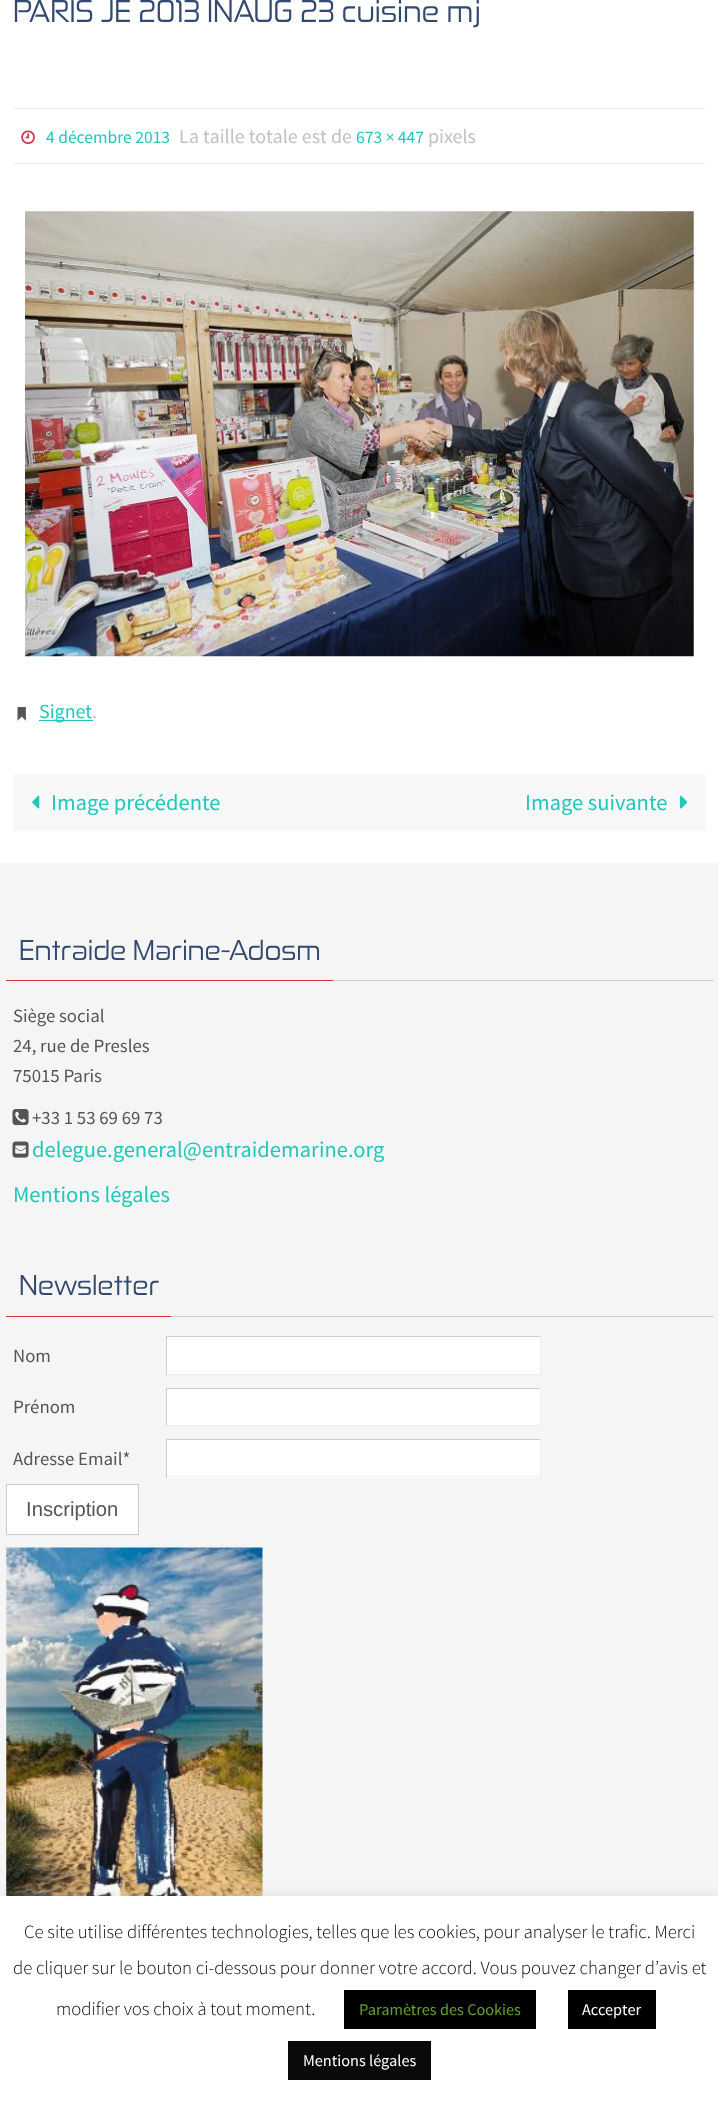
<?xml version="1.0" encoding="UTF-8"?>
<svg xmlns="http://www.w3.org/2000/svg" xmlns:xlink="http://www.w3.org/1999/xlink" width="718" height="2101">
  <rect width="100%" height="100%" fill="#ffffff" />
  <rect x="13" y="108" width="693" height="1" fill="#eeeeee" />
  <rect x="13" y="163" width="693" height="1" fill="#eeeeee" />
  <image x="21" y="130" width="14" height="15" xlink:href="image1.png" />
  <image x="25" y="211" width="669" height="446" xlink:href="image2.png" />
  <image x="17" y="707" width="9" height="14" xlink:href="image3.png" />
  <rect x="39" y="720" width="54" height="1" fill="#1ec8bb" />
  <rect x="13" y="774" width="693" height="57" fill="#f8f8f8" />
  <image x="32" y="795" width="8" height="14" xlink:href="image4.png" />
  <image x="680" y="795" width="8" height="14" xlink:href="image5.png" />
  <rect y="863" width="718" height="1033" fill="#f5f5f5" />
  <rect x="333" y="980" width="380" height="1" fill="#cccccc" />
  <rect x="6" y="980" width="327" height="1" fill="#d43547" />
  <image x="12" y="1109" width="17" height="17" xlink:href="image6.png" />
  <image x="12" y="1141" width="17" height="17" xlink:href="image7.png" />
  <rect x="171" y="1316" width="542" height="1" fill="#cccccc" />
  <rect x="6" y="1316" width="165" height="1" fill="#d43547" />
  <rect x="167" y="1337" width="373" height="37" fill="#ffffff" />
  <rect x="166" y="1336" width="375" height="1" fill="#cccccc" />
  <rect x="540" y="1336" width="1" height="39" fill="#eeeeee" />
  <rect x="166" y="1374" width="375" height="1" fill="#eeeeee" />
  <rect x="166" y="1336" width="1" height="39" fill="#cccccc" />
  <rect x="167" y="1389" width="373" height="36" fill="#ffffff" />
  <rect x="166" y="1388" width="375" height="1" fill="#cccccc" />
  <rect x="540" y="1388" width="1" height="38" fill="#eeeeee" />
  <rect x="166" y="1425" width="375" height="1" fill="#eeeeee" />
  <rect x="166" y="1388" width="1" height="38" fill="#cccccc" />
  <rect x="167" y="1440" width="373" height="38" fill="#ffffff" />
  <rect x="166" y="1439" width="375" height="1" fill="#cccccc" />
  <rect x="540" y="1439" width="1" height="39" fill="#eeeeee" />
  <rect x="166" y="1476" width="375" height="1" fill="#eeeeee" />
  <rect x="166" y="1439" width="1" height="39" fill="#cccccc" />
  <rect x="6.5" y="1484.5" width="132" height="50" fill="#ffffff" stroke="#cccccc" />
  <image x="6" y="1547" width="257" height="349" xlink:href="image8.png" />
  <rect y="1895" width="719" height="205" fill="#acabab" fill-opacity="0.3" filter="blur(6px)" />
  <rect y="1896" width="718" height="205" fill="#ffffff" />
  <rect x="344" y="1990" width="192" height="39" fill="#000000" />
  <rect x="568" y="1990" width="88" height="39" fill="#000000" />
  <rect x="288" y="2041" width="143" height="39" fill="#0a0a0a" />
  <text x="13" y="22" style="font-family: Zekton; font-size: 30px; fill: #334a70">PARIS JE 2013 INAUG 23 cuisine mj</text>
  <text x="46" y="143" style="font-family: Source Sans Pro; font-size: 17.5px; fill: #1ec8bb">4 décembre 2013</text>
  <text x="179" y="143" style="font-family: Source Sans Pro; font-size: 20px; fill: #c1c1c1">La taille totale est de</text>
  <text x="356" y="143" style="font-family: Source Sans Pro; font-size: 17.5px; fill: #1ec8bb">673 × 447</text>
  <text x="428" y="143" style="font-family: Source Sans Pro; font-size: 20px; fill: #c1c1c1">pixels</text>
  <text x="39" y="718" style="font-family: Source Sans Pro; font-size: 20px; fill: #1ec8bb">Signet</text>
  <text x="92" y="718" style="font-family: Source Sans Pro; font-size: 20px; fill: #c1c1c1">.</text>
  <text x="51" y="810" style="font-family: Source Sans Pro; font-size: 22.5px; fill: #1ec8bb">Image précédente</text>
  <text x="525" y="810" style="font-family: Source Sans Pro; font-size: 22.5px; fill: #1ec8bb">Image suivante</text>
  <text x="19" y="960" style="font-family: Zekton; font-size: 27.5px; fill: #334a70">Entraide Marine-Adosm</text>
  <text x="13" y="1022" style="font-family: Source Sans Pro; font-size: 18.75px; fill: #555555">Siège social</text>
  <text x="13" y="1052" style="font-family: Source Sans Pro; font-size: 18.75px; fill: #555555">24, rue de Presles</text>
  <text x="13" y="1082" style="font-family: Source Sans Pro; font-size: 18.75px; fill: #555555">75015 Paris</text>
  <text x="32" y="1124" style="font-family: Source Sans Pro; font-size: 18.75px; fill: #555555">+33 1 53 69 69 73</text>
  <text x="32" y="1157" style="font-family: Source Sans Pro; font-size: 22.5px; fill: #1ec8bb">delegue.general@entraidemarine.org</text>
  <text x="13" y="1202" style="font-family: Source Sans Pro; font-size: 22.5px; fill: #1ec8bb">Mentions légales</text>
  <text x="19" y="1295" style="font-family: Zekton; font-size: 27.5px; fill: #334a70">Newsletter</text>
  <text x="13" y="1362" style="font-family: Source Sans Pro; font-size: 18.75px; fill: #555555">Nom</text>
  <text x="13" y="1413" style="font-family: Source Sans Pro; font-size: 18.75px; fill: #555555">Prénom</text>
  <text x="13" y="1465" style="font-family: Source Sans Pro; font-size: 18.75px; fill: #555555">Adresse Email*</text>
  <text x="26" y="1516" style="font-family: Liberation Sans; font-size: 20.25px; fill: #555555">Inscription</text>
  <text x="24" y="1938" style="font-family: Source Sans Pro; font-size: 18.75px; font-weight: 300; fill: #000000">Ce site utilise différentes technologies, telles que les cookies, pour analyser le trafic. Merci</text>
  <text x="13" y="1974" style="font-family: Source Sans Pro; font-size: 18.75px; font-weight: 300; fill: #000000">de cliquer sur le bouton ci-dessous pour donner votre accord. Vous pouvez changer d’avis et</text>
  <text x="56" y="2015" style="font-family: Source Sans Pro; font-size: 18.75px; font-weight: 300; fill: #000000">modifier vos choix à tout moment.</text>
  <text x="359" y="2015" style="font-family: Source Sans Pro; font-size: 16.25px; fill: #62a329">Paramètres des Cookies</text>
  <text x="582" y="2015" style="font-family: Source Sans Pro; font-size: 16.25px; fill: #ffffff">Accepter</text>
  <text x="303" y="2066" style="font-family: Source Sans Pro; font-size: 16.25px; fill: #ffffff">Mentions légales</text>
</svg>
